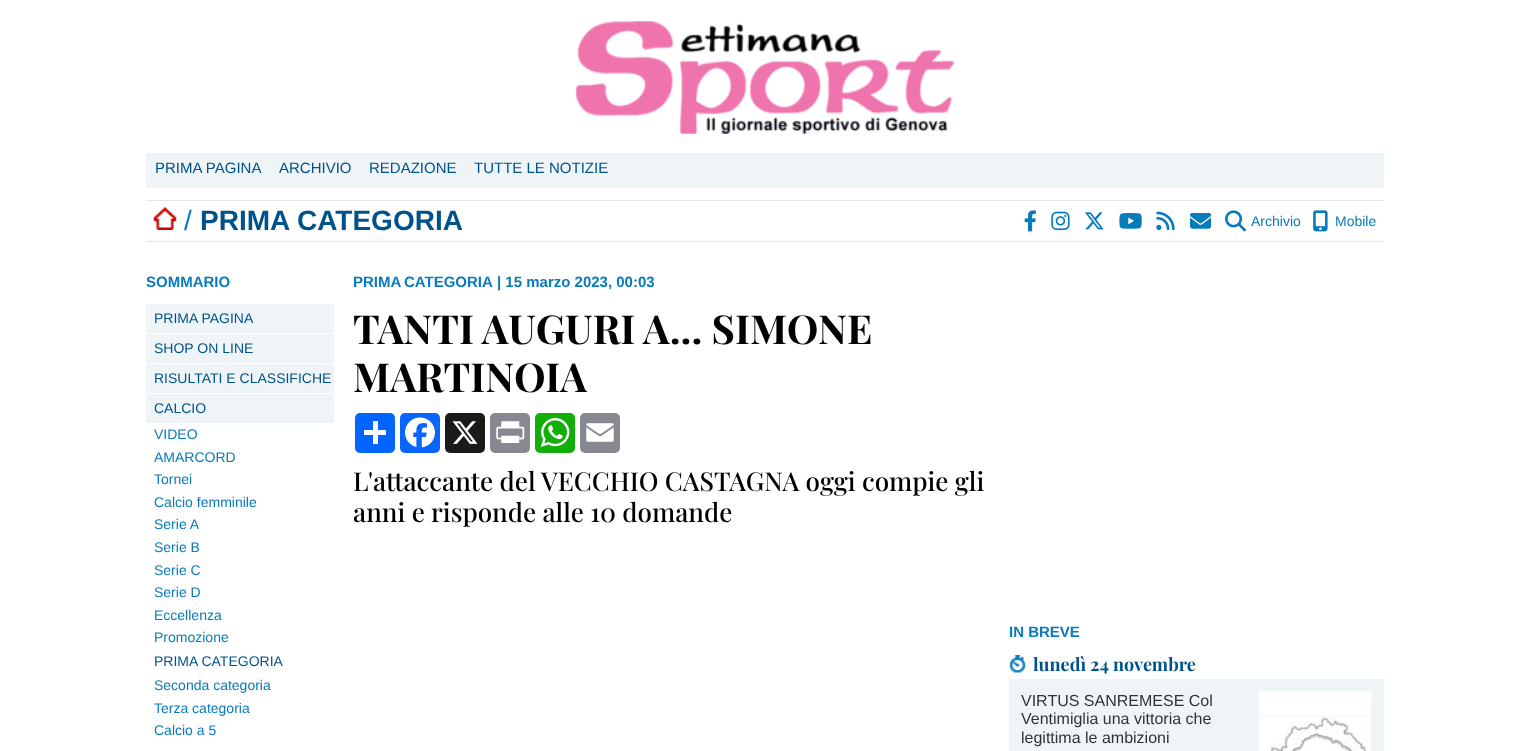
<?xml version="1.0" encoding="UTF-8"?>
<svg xmlns="http://www.w3.org/2000/svg" xmlns:xlink="http://www.w3.org/1999/xlink" width="1530" height="751">
  <rect width="100%" height="100%" fill="#ffffff" />
  <image x="576" y="21" width="378" height="113" xlink:href="image1.png" />
  <rect x="146" y="153" width="1238" height="35" fill="#eff4f7" />
  <rect x="146" y="200" width="1238" height="1" fill="#e5e5e5" />
  <rect x="146" y="241" width="1238" height="1" fill="#e5e5e5" />
  <image x="153" y="207" width="24" height="23" xlink:href="image2.png" />
  <image x="1024" y="210" width="12" height="22" xlink:href="image3.png" />
  <image x="1051" y="211" width="19" height="20" xlink:href="image4.png" />
  <image x="1085" y="212" width="19" height="18" xlink:href="image5.png" />
  <image x="1119" y="213" width="23" height="16" xlink:href="image6.png" />
  <image x="1156" y="211" width="19" height="20" xlink:href="image7.png" />
  <image x="1190" y="213" width="21" height="16" xlink:href="image8.png" />
  <image x="1225" y="210" width="21" height="22" xlink:href="image9.png" />
  <image x="1313" y="210" width="15" height="22" xlink:href="image10.png" />
  <rect x="146" y="304" width="188" height="29" fill="#eff4f7" />
  <rect x="146" y="334" width="188" height="29" fill="#eff4f7" />
  <rect x="146" y="364" width="188" height="29" fill="#eff4f7" />
  <rect x="146" y="394" width="188" height="29" fill="#eff4f7" />
  <rect x="355" y="413" width="40" height="40" rx="5" fill="#0166ff" />
  <rect x="373" y="421" width="5" height="23" fill="#ffffff" />
  <rect x="364" y="430" width="22" height="5" fill="#ffffff" />
  <rect x="400" y="413" width="40" height="40" rx="5" fill="#0866ff" />
  <image x="405" y="417" width="30" height="31" xlink:href="image11.png" />
  <rect x="445" y="413" width="40" height="40" rx="5" fill="#1a1a1a" />
  <image x="452" y="421" width="26" height="23" xlink:href="image12.png" />
  <rect x="490" y="413" width="40" height="40" rx="5" fill="#888990" />
  <image x="496" y="421" width="29" height="22" xlink:href="image13.png" />
  <rect x="535" y="413" width="40" height="40" rx="5" fill="#12af0a" />
  <image x="540" y="418" width="30" height="29" xlink:href="image14.png" />
  <rect x="580" y="413" width="40" height="40" rx="5" fill="#888990" />
  <image x="586" y="423" width="28" height="19" xlink:href="image15.png" />
  <image x="1009" y="655" width="17" height="18" xlink:href="image16.png" />
  <rect x="1009" y="679" width="375" height="72" fill="#eff4f7" />
  <image x="1258" y="691" width="114" height="60" xlink:href="image17.png" />
  <text x="155" y="173" style="font-family: Liberation Sans; font-size: 15px; fill: #00528a">PRIMA PAGINA</text>
  <text x="279" y="173" style="font-family: Liberation Sans; font-size: 15px; fill: #00528a">ARCHIVIO</text>
  <text x="369" y="173" style="font-family: Liberation Sans; font-size: 15px; fill: #00528a">REDAZIONE</text>
  <text x="474" y="173" style="font-family: Liberation Sans; font-size: 15px; fill: #00528a">TUTTE LE NOTIZIE</text>
  <text x="184" y="230" style="font-family: Liberation Sans; font-size: 28px; fill: #087bbb">/</text>
  <text x="200" y="230" style="font-family: Liberation Sans; font-size: 28px; font-weight: bold; fill: #00528a">PRIMA CATEGORIA</text>
  <text x="1251" y="226" style="font-family: Liberation Sans; font-size: 14px; fill: #087bbb">Archivio</text>
  <text x="1335" y="226" style="font-family: Liberation Sans; font-size: 14px; fill: #087bbb">Mobile</text>
  <text x="146" y="287" style="font-family: Liberation Sans; font-size: 15px; font-weight: bold; fill: #087bbb">SOMMARIO</text>
  <text x="154" y="323" style="font-family: Liberation Sans; font-size: 14px; fill: #00528a">PRIMA PAGINA</text>
  <text x="154" y="353" style="font-family: Liberation Sans; font-size: 14px; fill: #00528a">SHOP ON LINE</text>
  <text x="154" y="383" style="font-family: Liberation Sans; font-size: 14px; fill: #00528a">RISULTATI E CLASSIFICHE</text>
  <text x="154" y="413" style="font-family: Liberation Sans; font-size: 14px; fill: #00528a">CALCIO</text>
  <text x="154" y="439" style="font-family: Liberation Sans; font-size: 14px; fill: #087bbb">VIDEO</text>
  <text x="154" y="462" style="font-family: Liberation Sans; font-size: 14px; fill: #087bbb">AMARCORD</text>
  <text x="154" y="484" style="font-family: Liberation Sans; font-size: 14px; fill: #087bbb">Tornei</text>
  <text x="154" y="507" style="font-family: Liberation Sans; font-size: 14px; fill: #087bbb">Calcio femminile</text>
  <text x="154" y="529" style="font-family: Liberation Sans; font-size: 14px; fill: #087bbb">Serie A</text>
  <text x="154" y="552" style="font-family: Liberation Sans; font-size: 14px; fill: #087bbb">Serie B</text>
  <text x="154" y="575" style="font-family: Liberation Sans; font-size: 14px; fill: #087bbb">Serie C</text>
  <text x="154" y="597" style="font-family: Liberation Sans; font-size: 14px; fill: #087bbb">Serie D</text>
  <text x="154" y="620" style="font-family: Liberation Sans; font-size: 14px; fill: #087bbb">Eccellenza</text>
  <text x="154" y="642" style="font-family: Liberation Sans; font-size: 14px; fill: #087bbb">Promozione</text>
  <text x="154" y="666" style="font-family: Liberation Sans; font-size: 14px; fill: #00528a">PRIMA CATEGORIA</text>
  <text x="154" y="690" style="font-family: Liberation Sans; font-size: 14px; fill: #087bbb">Seconda categoria</text>
  <text x="154" y="713" style="font-family: Liberation Sans; font-size: 14px; fill: #087bbb">Terza categoria</text>
  <text x="154" y="735" style="font-family: Liberation Sans; font-size: 14px; fill: #087bbb">Calcio a 5</text>
  <text x="353" y="287" word-spacing="-1" style="font-family: Liberation Sans; font-size: 15px; font-weight: bold; fill: #087bbb">PRIMA CATEGORIA</text>
  <text x="497" y="287" style="font-family: Liberation Sans; font-size: 15px; font-weight: bold; fill: #087bbb">| 15 marzo 2023, 00:03</text>
  <text x="353" y="344" style="font-family: Playfair Display; font-size: 40px; font-weight: bold; fill: #000000">TANTI AUGURI A... SIMONE</text>
  <text x="353" y="392" style="font-family: Playfair Display; font-size: 40px; font-weight: bold; fill: #000000">MARTINOIA</text>
  <text x="353" y="491" style="font-family: Playfair Display; font-size: 26px; font-weight: 500; fill: #000000">L'attaccante del VECCHIO CASTAGNA oggi compie gli</text>
  <text x="353" y="522" style="font-family: Playfair Display; font-size: 26px; font-weight: 500; fill: #000000">anni e risponde alle 10 domande</text>
  <text x="1009" y="637" style="font-family: Liberation Sans; font-size: 15px; font-weight: bold; fill: #087bbb">IN BREVE</text>
  <text x="1033" y="671" style="font-family: Playfair Display; font-size: 18px; font-weight: bold; fill: #00528a">lunedì 24 novembre</text>
  <text x="1021" y="706" style="font-family: Liberation Sans; font-size: 16px; fill: #333333">VIRTUS SANREMESE Col</text>
  <text x="1021" y="724" style="font-family: Liberation Sans; font-size: 16px; fill: #333333">Ventimiglia una vittoria che</text>
  <text x="1021" y="743" style="font-family: Liberation Sans; font-size: 16px; fill: #333333">legittima le ambizioni</text>
</svg>
